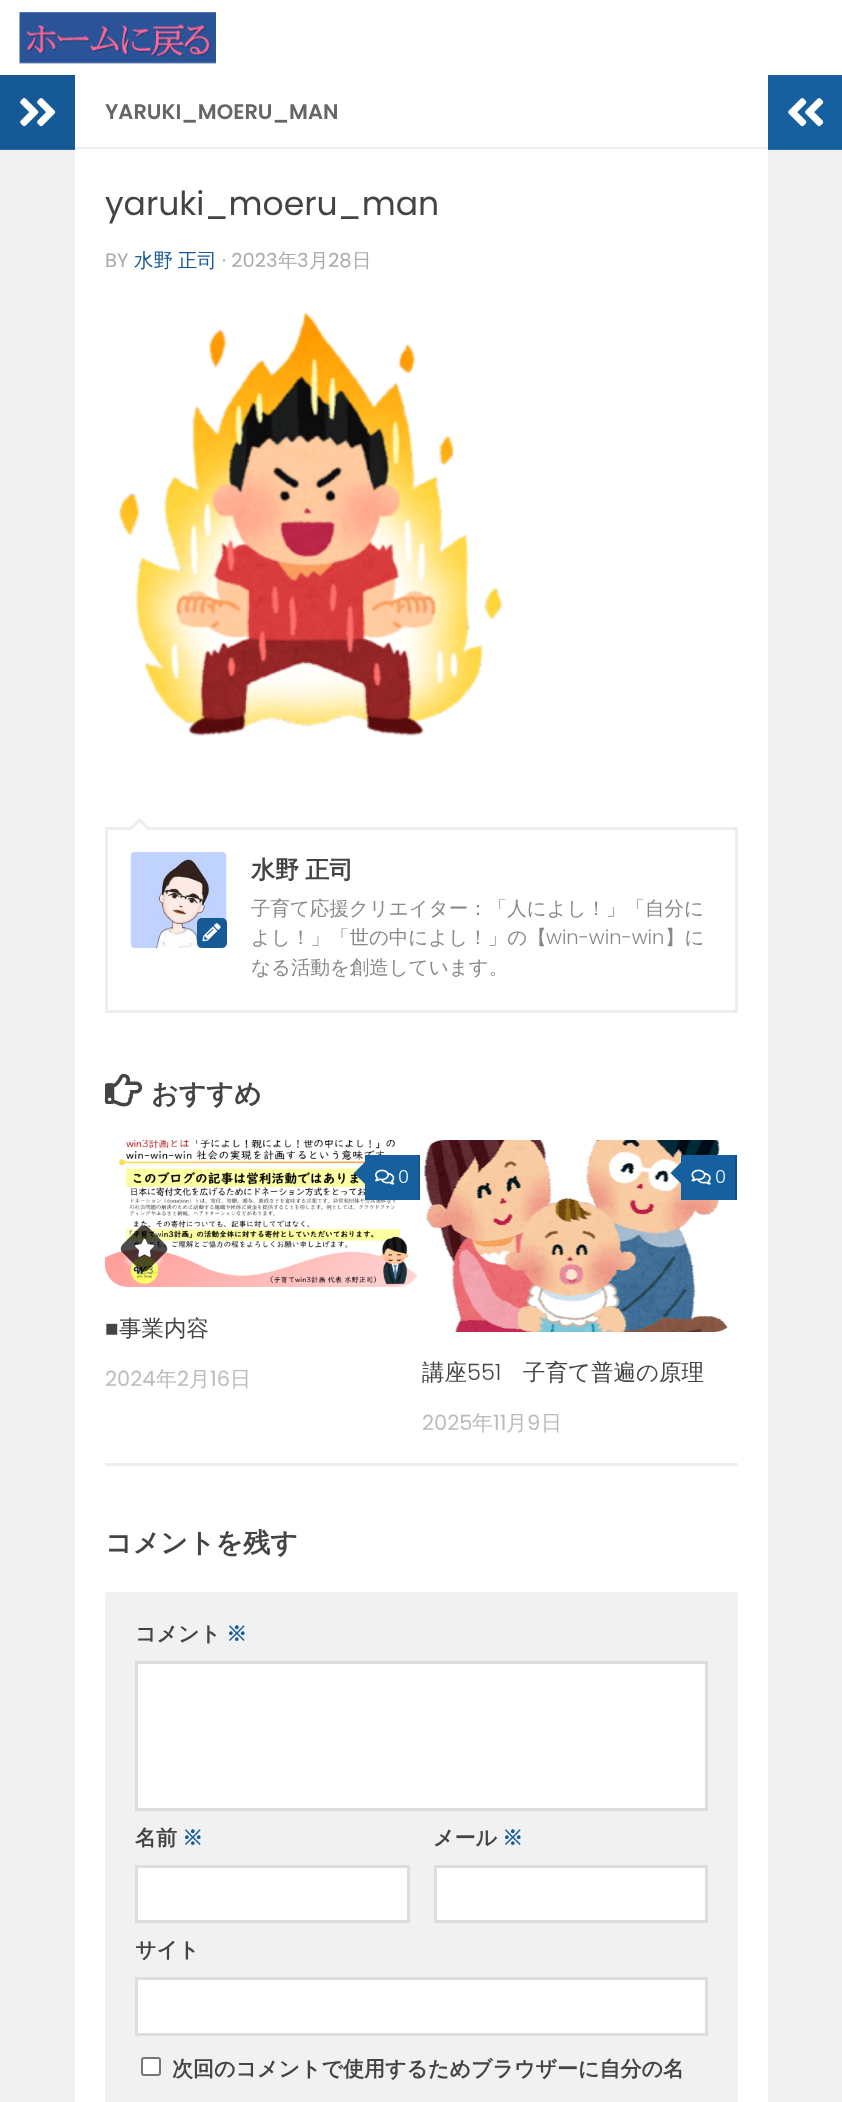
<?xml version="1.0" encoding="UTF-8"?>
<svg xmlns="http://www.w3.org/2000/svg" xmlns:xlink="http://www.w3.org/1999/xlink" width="842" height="2102">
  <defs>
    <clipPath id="clip1"><path d="M 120 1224 h 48 v 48 h -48 z m 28 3.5 l 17 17 c 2.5 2.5 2.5 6 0 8.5 l -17 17 c -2 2 -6 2 -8 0 l -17 -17 c -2.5 -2.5 -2.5 -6 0 -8.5 l 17 -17 c 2 -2.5 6 -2.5 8 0 z" clip-rule="evenodd" /></clipPath>
  </defs>
  <rect width="100%" height="100%" fill="#ffffff" />
  <image x="19" y="12" width="197" height="52" xlink:href="image1.png" />
  <rect y="151" width="75" height="1951" fill="#f0f0f0" />
  <rect y="150" width="75" height="1" fill="#f2f2f2" />
  <rect y="75" width="75" height="74" fill="#155a96" />
  <rect y="149" width="75" height="1" fill="#2c6ba1" />
  <image x="20" y="98" width="36" height="29" xlink:href="image2.png" />
  <rect x="75" y="147" width="693" height="2" fill="#eeeeee" />
  <image x="118" y="312" width="385" height="424" xlink:href="image3.png" />
  <rect x="106.5" y="828.5" width="630" height="183" fill="none" stroke="#eeeeee" stroke-width="3" />
  <path d="M 151.5 829.5 h -24 l 12 -12 z" fill="#eeeeee" />
  <path d="M 148.5 831 h -18 l 9 -9 z" fill="#ffffff" />
  <image x="130" y="852" width="97" height="96" xlink:href="image4.png" />
  <rect x="197" y="918" width="30" height="30" rx="5" fill="#155a96" />
  <image x="202" y="923" width="19" height="19" xlink:href="image5.png" />
  <image x="105" y="1073" width="38" height="34" xlink:href="image6.png" />
  <rect x="105" y="1463" width="633" height="3" fill="#eeeeee" />
  <image x="105" y="1140" width="312" height="147" xlink:href="image7.png" />
  <g clip-path="url(#clip1)">
    <rect x="126" y="1230" width="36" height="36" rx="6" fill="#ffffff" fill-opacity="0.4" filter="blur(1.5px)" />
  </g>
  <path d="M 148 1227 l 17 17 c 3 3 3 7 0 9 l -17 17 c -2 2 -6 2 -8 0 l -17 -17 c -3 -2 -3 -6 0 -9 l 17 -17 c 2 -2 6 -2 8 0 z" fill="#000000" fill-opacity="0.7" />
  <image x="135" y="1238" width="19" height="19" xlink:href="image8.png" />
  <rect x="365" y="1155" width="54" height="45" fill="#1660a0" />
  <rect x="419" y="1155" width="1" height="45" fill="#124d80" />
  <path d="M 367.5 1159.5 v 27 l -13.5 -13.5 z" fill="#1660a0" />
  <image x="375" y="1169" width="20" height="16" xlink:href="image9.png" />
  <image x="424" y="1140" width="304" height="192" xlink:href="image10.png" />
  <rect x="681" y="1155" width="54" height="45" fill="#1660a0" />
  <rect x="735" y="1155" width="2" height="45" fill="#124d80" />
  <path d="M 684 1159.5 v 27 l -13.5 -13.5 z" fill="#1660a0" />
  <image x="691" y="1169" width="20" height="16" xlink:href="image11.png" />
  <rect x="105" y="1592" width="633" height="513" rx="3" fill="#f1f1f1" />
  <rect x="136.5" y="1662.5" width="570" height="147" fill="#ffffff" stroke="#dddddd" stroke-width="3" />
  <rect x="136.5" y="1866.5" width="272" height="55" fill="#ffffff" stroke="#dddddd" stroke-width="3" />
  <rect x="435.5" y="1866.5" width="271" height="55" fill="#ffffff" stroke="#dddddd" stroke-width="3" />
  <rect x="136.5" y="1978.5" width="570" height="56" fill="#ffffff" stroke="#dddddd" stroke-width="3" />
  <rect x="142" y="2058" width="18" height="17" rx="2" fill="#ffffff" stroke="#767676" stroke-width="2" />
  <rect x="768" y="75" width="74" height="74" fill="#1660a0" />
  <rect x="768" y="149" width="74" height="1" fill="#2d70aa" />
  <image x="788" y="98" width="36" height="29" xlink:href="image12.png" />
  <rect x="768" y="151" width="74" height="1951" fill="#f0f0f0" />
  <rect x="768" y="150" width="74" height="1" fill="#f2f2f2" />
  <text x="105" y="119" style="font-family: Poppins; font-size: 21px; font-weight: 600; fill: #666666">YARUKI_MOERU_MAN</text>
  <text x="105" y="215" style="font-family: Poppins; font-size: 33px; fill: #444444">yaruki_moeru_man</text>
  <text x="105" y="267" style="font-family: Poppins; font-size: 19.5px; fill: #aaaaaa">BY</text>
  <text x="134" y="267" word-spacing="-1" style="font-family: WenQuanYi Zen Hei; font-size: 19.5px; font-weight: 500; fill: #155a96">水野 正司</text>
  <text x="222" y="267" style="font-family: Poppins; font-size: 19.5px; fill: #aaaaaa">· 2023</text>
  <text x="278" y="267" style="font-family: WenQuanYi Zen Hei; font-size: 19.5px; font-weight: 500; fill: #aaaaaa">年</text>
  <text x="297" y="267" style="font-family: Poppins; font-size: 19.5px; fill: #aaaaaa">3</text>
  <text x="309" y="267" style="font-family: WenQuanYi Zen Hei; font-size: 19.5px; font-weight: 500; fill: #aaaaaa">月</text>
  <text x="328" y="267" style="font-family: Poppins; font-size: 19.5px; fill: #aaaaaa">28</text>
  <text x="352" y="267" style="font-family: WenQuanYi Zen Hei; font-size: 19.5px; font-weight: 500; fill: #aaaaaa">日</text>
  <text x="251" y="878" word-spacing="-1" style="font-family: WenQuanYi Zen Hei; font-size: 24px; font-weight: bold; fill: #444444">水野 正司</text>
  <text x="251" y="915" style="font-family: WenQuanYi Zen Hei; font-size: 19.5px; font-weight: 500; fill: #888888">子育て応援クリエイター：「人によし！」「自分に</text>
  <text x="251" y="944" style="font-family: WenQuanYi Zen Hei; font-size: 19.5px; font-weight: 500; fill: #888888">よし！」「世の中によし！」の【</text>
  <text x="546" y="944" style="font-family: Poppins; font-size: 19.5px; font-weight: 300; fill: #888888">win-win-win</text>
  <text x="665" y="944" style="font-family: WenQuanYi Zen Hei; font-size: 19.5px; font-weight: 500; fill: #888888">】に</text>
  <text x="251" y="974" style="font-family: WenQuanYi Zen Hei; font-size: 19.5px; font-weight: 500; fill: #888888">なる活動を創造しています。</text>
  <text x="151" y="1103" style="font-family: WenQuanYi Zen Hei; font-size: 27px; font-weight: bold; fill: #444444">おすすめ</text>
  <text x="398" y="1183" style="font-family: Poppins; font-size: 18px; font-weight: 300; fill: #ffffff">0</text>
  <text x="105" y="1336" style="font-family: Liberation Sans; font-size: 22.5px; fill: #444444">■</text>
  <text x="119" y="1336" style="font-family: WenQuanYi Zen Hei; font-size: 22.5px; font-weight: 500; fill: #444444">事業内容</text>
  <text x="105" y="1386" style="font-family: Poppins; font-size: 21px; fill: #bbbbbb">2024</text>
  <text x="156" y="1386" style="font-family: WenQuanYi Zen Hei; font-size: 21px; font-weight: 500; fill: #bbbbbb">年</text>
  <text x="177" y="1386" style="font-family: Poppins; font-size: 21px; fill: #bbbbbb">2</text>
  <text x="189" y="1386" style="font-family: WenQuanYi Zen Hei; font-size: 21px; font-weight: 500; fill: #bbbbbb">月</text>
  <text x="210" y="1386" style="font-family: Poppins; font-size: 21px; fill: #bbbbbb">16</text>
  <text x="230" y="1386" style="font-family: WenQuanYi Zen Hei; font-size: 21px; font-weight: 500; fill: #bbbbbb">日</text>
  <text x="715" y="1183" style="font-family: Poppins; font-size: 18px; font-weight: 300; fill: #ffffff">0</text>
  <text x="422" y="1380" style="font-family: WenQuanYi Zen Hei; font-size: 22.5px; font-weight: 500; fill: #444444">講座</text>
  <text x="467" y="1380" style="font-family: Poppins; font-size: 22.5px; font-weight: 300; fill: #444444">551</text>
  <text x="523" y="1380" style="font-family: WenQuanYi Zen Hei; font-size: 22.5px; font-weight: 500; fill: #444444">子育て普遍の原理</text>
  <text x="422" y="1430" style="font-family: Poppins; font-size: 21px; fill: #bbbbbb">2025</text>
  <text x="472" y="1430" style="font-family: WenQuanYi Zen Hei; font-size: 21px; font-weight: 500; fill: #bbbbbb">年</text>
  <text x="493" y="1430" style="font-family: Poppins; font-size: 21px; fill: #bbbbbb">11</text>
  <text x="506" y="1430" style="font-family: WenQuanYi Zen Hei; font-size: 21px; font-weight: 500; fill: #bbbbbb">月</text>
  <text x="527" y="1430" style="font-family: Poppins; font-size: 21px; fill: #bbbbbb">9</text>
  <text x="541" y="1430" style="font-family: WenQuanYi Zen Hei; font-size: 21px; font-weight: 500; fill: #bbbbbb">日</text>
  <text x="105" y="1552" style="font-family: WenQuanYi Zen Hei; font-size: 27px; font-weight: bold; fill: #444444">コメントを残す</text>
  <text x="135" y="1641" style="font-family: WenQuanYi Zen Hei; font-size: 21px; font-weight: bold; fill: #444444">コメント</text>
  <text x="226" y="1641" style="font-family: WenQuanYi Zen Hei; font-size: 21px; font-weight: bold; fill: #155a96">※</text>
  <text x="135" y="1845" style="font-family: WenQuanYi Zen Hei; font-size: 21px; font-weight: bold; fill: #444444">名前</text>
  <text x="182" y="1845" style="font-family: WenQuanYi Zen Hei; font-size: 21px; font-weight: bold; fill: #155a96">※</text>
  <text x="433" y="1845" style="font-family: WenQuanYi Zen Hei; font-size: 21px; font-weight: bold; fill: #444444">メール</text>
  <text x="502" y="1845" style="font-family: WenQuanYi Zen Hei; font-size: 21px; font-weight: bold; fill: #155a96">※</text>
  <text x="135" y="1957" style="font-family: WenQuanYi Zen Hei; font-size: 21px; font-weight: bold; fill: #444444">サイト</text>
  <text x="172" y="2076" style="font-family: WenQuanYi Zen Hei; font-size: 21px; font-weight: bold; fill: #444444">次回のコメントで使用するためブラウザーに自分の名</text>
</svg>
